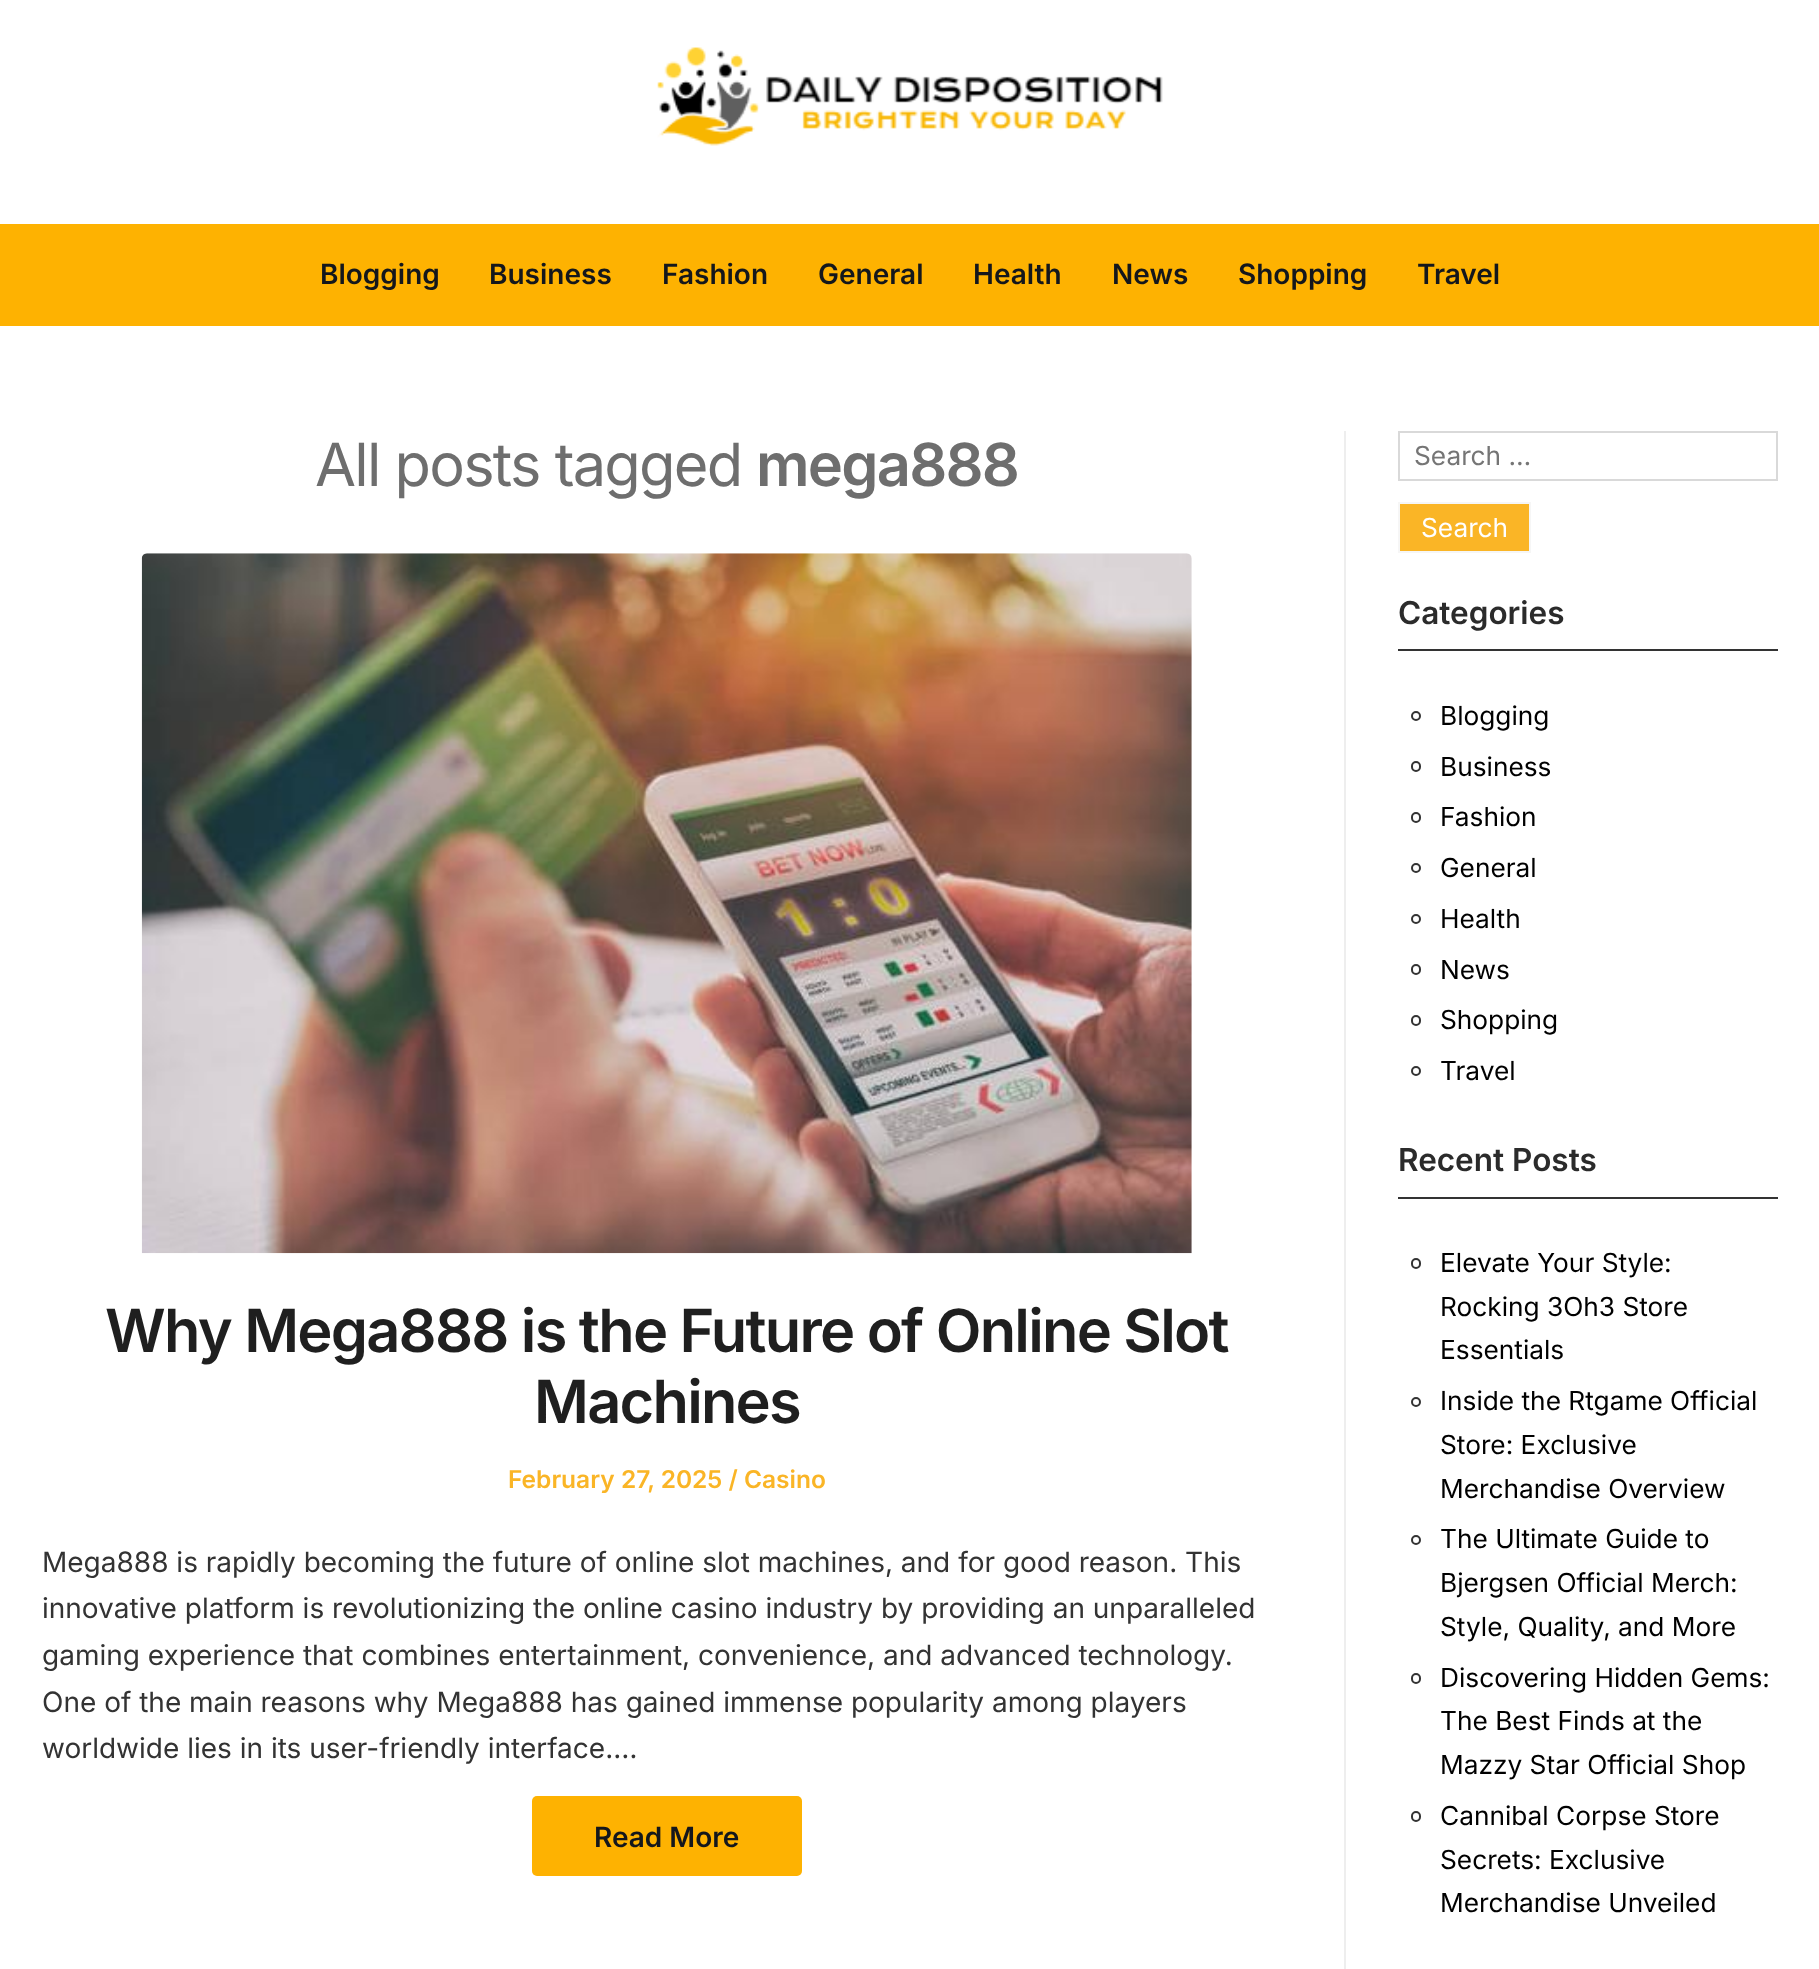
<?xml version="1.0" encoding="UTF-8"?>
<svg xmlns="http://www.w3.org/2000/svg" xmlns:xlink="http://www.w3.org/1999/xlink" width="1819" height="1969">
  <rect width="100%" height="100%" fill="#ffffff" />
  <image x="657" y="47" width="506" height="99" xlink:href="image1.png" />
  <rect y="224" width="1819" height="102" fill="#feb201" />
  <image x="141" y="553" width="1051" height="701" xlink:href="image2.png" />
  <rect x="532" y="1796" width="270" height="80" rx="5" fill="#feb201" />
  <rect x="1344" y="431" width="2" height="1538" fill="#eeeeee" />
  <rect x="1399" y="432" width="378" height="48" fill="none" stroke="#d9d9d9" stroke-width="2" />
  <rect x="1399" y="503" width="131" height="49" fill="#fab526" stroke="#f6f6f6" stroke-width="2" />
  <rect x="1398" y="649" width="380" height="2" fill="#333333" />
  <circle cx="1416" cy="716" r="4" fill="none" stroke="#333333" stroke-width="2" />
  <rect x="1412" y="762" width="8" height="9" rx="4" fill="none" stroke="#333333" stroke-width="2" />
  <rect x="1412" y="813" width="8" height="9" rx="4" fill="none" stroke="#333333" stroke-width="2" />
  <circle cx="1416" cy="868" r="4" fill="none" stroke="#333333" stroke-width="2" />
  <circle cx="1416" cy="919" r="4" fill="none" stroke="#333333" stroke-width="2" />
  <rect x="1412" y="965" width="8" height="9" rx="4" fill="none" stroke="#333333" stroke-width="2" />
  <rect x="1412" y="1016" width="8" height="9" rx="4" fill="none" stroke="#333333" stroke-width="2" />
  <circle cx="1416" cy="1071" r="4" fill="none" stroke="#333333" stroke-width="2" />
  <rect x="1398" y="1197" width="380" height="2" fill="#333333" />
  <rect x="1412" y="1259" width="8" height="9" rx="4" fill="none" stroke="#333333" stroke-width="2" />
  <circle cx="1416" cy="1402" r="4" fill="none" stroke="#333333" stroke-width="2" />
  <circle cx="1416" cy="1540" r="4" fill="none" stroke="#333333" stroke-width="2" />
  <rect x="1412" y="1674" width="8" height="9" rx="4" fill="none" stroke="#333333" stroke-width="2" />
  <rect x="1412" y="1812" width="8" height="9" rx="4" fill="none" stroke="#333333" stroke-width="2" />
  <text x="320" y="284" style="font-family: Inter; font-size: 28px; font-weight: 600; fill: #14171c">Blogging</text>
  <text x="489" y="284" style="font-family: Inter; font-size: 28px; font-weight: 600; fill: #14171c">Business</text>
  <text x="662" y="284" style="font-family: Inter; font-size: 28px; font-weight: 600; fill: #14171c">Fashion</text>
  <text x="818" y="284" style="font-family: Inter; font-size: 28px; font-weight: 600; fill: #14171c">General</text>
  <text x="973" y="284" style="font-family: Inter; font-size: 28px; font-weight: 600; fill: #14171c">Health</text>
  <text x="1112" y="284" style="font-family: Inter; font-size: 28px; font-weight: 600; fill: #14171c">News</text>
  <text x="1238" y="284" style="font-family: Inter; font-size: 28px; font-weight: 600; fill: #14171c">Shopping</text>
  <text x="1417" y="284" style="font-family: Inter; font-size: 28px; font-weight: 600; fill: #14171c">Travel</text>
  <text x="315" y="486" style="font-family: Inter; font-size: 59.5px; letter-spacing: -1.75px; fill: #6e6e6e">All posts tagged</text>
  <text x="756" y="486" style="font-family: Inter; font-size: 59.5px; font-weight: 600; letter-spacing: -1.75px; fill: #6e6e6e">mega888</text>
  <text x="105" y="1352" style="font-family: Inter; font-size: 59.5px; font-weight: 600; letter-spacing: -1.75px; fill: #1f1f1f">Why Mega888 is the Future of Online Slot</text>
  <text x="534" y="1423" style="font-family: Inter; font-size: 59.5px; font-weight: 600; letter-spacing: -1.75px; fill: #1f1f1f">Machines</text>
  <text x="508" y="1488" style="font-family: Inter; font-size: 24.5px; font-weight: 600; fill: #fab526">February 27, 2025 / Casino</text>
  <text x="42" y="1572" style="font-family: Inter; font-size: 28px; fill: #333333">Mega888 is rapidly becoming the future of online slot machines, and for good reason. This</text>
  <text x="42" y="1618" style="font-family: Inter; font-size: 28px; fill: #333333">innovative platform is revolutionizing the online casino industry by providing an unparalleled</text>
  <text x="42" y="1665" style="font-family: Inter; font-size: 28px; fill: #333333">gaming experience that combines entertainment, convenience, and advanced technology.</text>
  <text x="42" y="1712" style="font-family: Inter; font-size: 28px; fill: #333333">One of the main reasons why Mega888 has gained immense popularity among players</text>
  <text x="42" y="1758" style="font-family: Inter; font-size: 28px; fill: #333333">worldwide lies in its user-friendly interface.…</text>
  <text x="594" y="1847" style="font-family: Inter; font-size: 28px; font-weight: 600; fill: #14171c">Read More</text>
  <text x="1414" y="465" style="font-family: Inter; font-size: 26.25px; fill: #757575">Search …</text>
  <text x="1421" y="537" style="font-family: Inter; font-size: 26.25px; fill: #ffffff">Search</text>
  <text x="1398" y="624" style="font-family: Inter; font-size: 31.5px; font-weight: 600; fill: #2b2b2b">Categories</text>
  <text x="1440" y="725" style="font-family: Inter; font-size: 26.25px; fill: #000000">Blogging</text>
  <text x="1440" y="776" style="font-family: Inter; font-size: 26.25px; fill: #000000">Business</text>
  <text x="1440" y="826" style="font-family: Inter; font-size: 26.25px; fill: #000000">Fashion</text>
  <text x="1440" y="877" style="font-family: Inter; font-size: 26.25px; fill: #000000">General</text>
  <text x="1440" y="928" style="font-family: Inter; font-size: 26.25px; fill: #000000">Health</text>
  <text x="1440" y="979" style="font-family: Inter; font-size: 26.25px; fill: #000000">News</text>
  <text x="1440" y="1029" style="font-family: Inter; font-size: 26.25px; fill: #000000">Shopping</text>
  <text x="1440" y="1080" style="font-family: Inter; font-size: 26.25px; fill: #000000">Travel</text>
  <text x="1398" y="1171" style="font-family: Inter; font-size: 31.5px; font-weight: 600; fill: #2b2b2b">Recent Posts</text>
  <text x="1440" y="1272" style="font-family: Inter; font-size: 26.25px; fill: #000000">Elevate Your Style:</text>
  <text x="1440" y="1316" style="font-family: Inter; font-size: 26.25px; fill: #000000">Rocking 3Oh3 Store</text>
  <text x="1440" y="1359" style="font-family: Inter; font-size: 26.25px; fill: #000000">Essentials</text>
  <text x="1440" y="1410" style="font-family: Inter; font-size: 26.25px; fill: #000000">Inside the Rtgame Official</text>
  <text x="1440" y="1454" style="font-family: Inter; font-size: 26.25px; fill: #000000">Store: Exclusive</text>
  <text x="1440" y="1498" style="font-family: Inter; font-size: 26.25px; fill: #000000">Merchandise Overview</text>
  <text x="1440" y="1548" style="font-family: Inter; font-size: 26.25px; fill: #000000">The Ultimate Guide to</text>
  <text x="1440" y="1592" style="font-family: Inter; font-size: 26.25px; fill: #000000">Bjergsen Official Merch:</text>
  <text x="1440" y="1636" style="font-family: Inter; font-size: 26.25px; fill: #000000">Style, Quality, and More</text>
  <text x="1440" y="1687" style="font-family: Inter; font-size: 26.25px; fill: #000000">Discovering Hidden Gems:</text>
  <text x="1440" y="1730" style="font-family: Inter; font-size: 26.25px; fill: #000000">The Best Finds at the</text>
  <text x="1440" y="1774" style="font-family: Inter; font-size: 26.25px; fill: #000000">Mazzy Star Official Shop</text>
  <text x="1440" y="1825" style="font-family: Inter; font-size: 26.25px; fill: #000000">Cannibal Corpse Store</text>
  <text x="1440" y="1869" style="font-family: Inter; font-size: 26.25px; fill: #000000">Secrets: Exclusive</text>
  <text x="1440" y="1912" style="font-family: Inter; font-size: 26.25px; fill: #000000">Merchandise Unveiled</text>
</svg>
